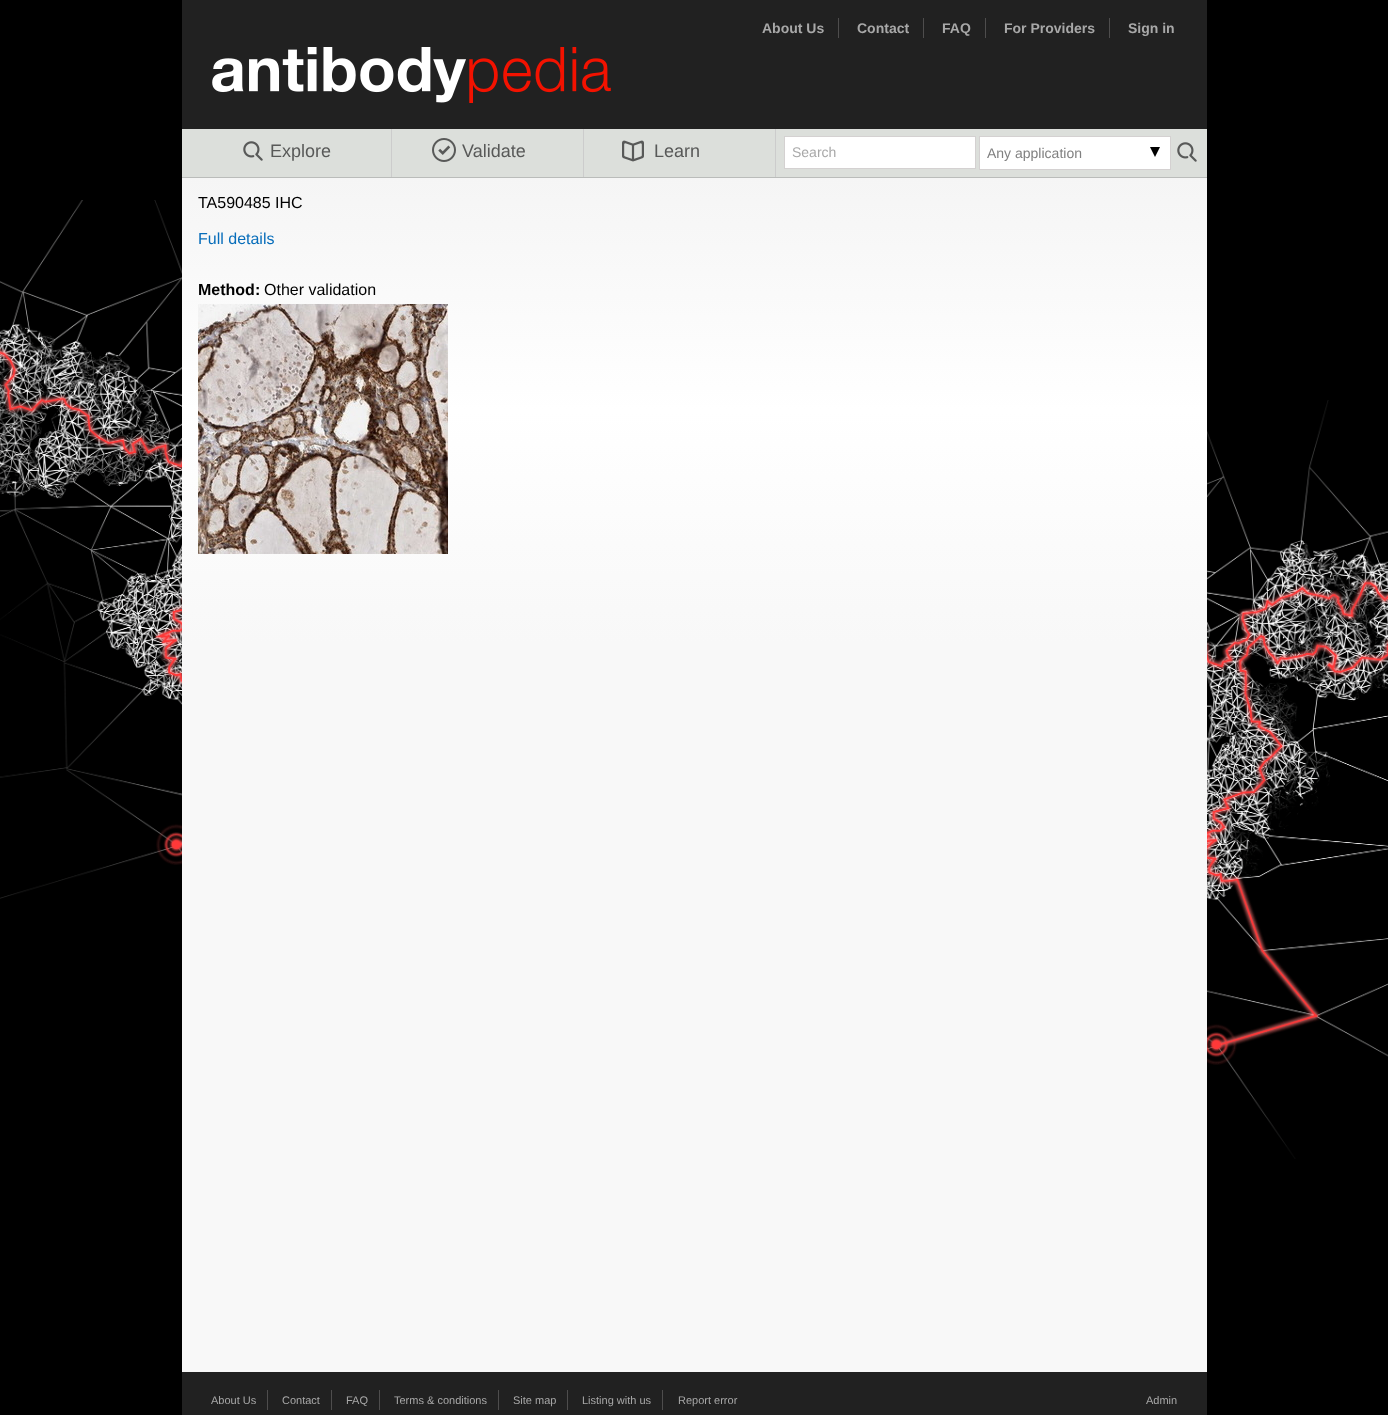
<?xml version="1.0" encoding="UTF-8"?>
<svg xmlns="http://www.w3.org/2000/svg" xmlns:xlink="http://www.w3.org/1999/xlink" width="1388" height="1415">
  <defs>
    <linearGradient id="g1" gradientUnits="userSpaceOnUse" x1="182" y1="178" x2="182" y2="643"><stop offset="0" stop-color="#f5f5f5" /><stop offset="0.5" stop-color="#ffffff" /><stop offset="1" stop-color="#f8f8f8" /></linearGradient>
  </defs>
  <rect width="100%" height="100%" fill="#000000" />
  <image x="0" y="200" width="1388" height="959" xlink:href="image1.png" />
  <rect x="182" y="643" width="1025" height="729" fill="#f8f8f8" />
  <rect x="182" width="1025" height="129" fill="#212121" />
  <rect x="838" y="18" width="1" height="20" fill="#4e4d4d" />
  <rect x="923" y="18" width="1" height="20" fill="#4e4d4d" />
  <rect x="985" y="18" width="1" height="20" fill="#4e4d4d" />
  <rect x="1109" y="18" width="1" height="20" fill="#4e4d4d" />
  <image x="212" y="47" width="399" height="56" xlink:href="image2.png" />
  <rect x="182" y="129" width="1025" height="48" fill="#dcdfdb" />
  <rect x="182" y="177" width="1025" height="1" fill="#babcba" />
  <rect x="391" y="129" width="1" height="48" fill="#cccccc" />
  <image x="243" y="141" width="20" height="20" xlink:href="image3.png" />
  <rect x="583" y="129" width="1" height="48" fill="#cccccc" />
  <image x="432" y="138" width="24" height="24" xlink:href="image4.png" />
  <rect x="775" y="129" width="1" height="48" fill="#cccccc" />
  <image x="622" y="140" width="22" height="22" xlink:href="image5.png" />
  <rect x="784.5" y="136.5" width="191" height="32" fill="#ffffff" stroke="#d4d1d1" />
  <rect x="979.5" y="136.5" width="191" height="33" fill="#ffffff" stroke="#d4d1d1" />
  <path d="M 1150 147 h 10 l -5 10 z" fill="#000000" />
  <image x="1177" y="142" width="20" height="20" xlink:href="image3.png" />
  <rect x="182" y="178" width="1025" height="465" fill="url(#g1)" />
  <image x="198" y="304" width="250" height="250" xlink:href="image6.png" />
  <rect x="182" y="1372" width="1025" height="43" fill="#212121" />
  <rect x="267" y="1390" width="1" height="20" fill="#4e4d4d" />
  <rect x="331" y="1390" width="1" height="20" fill="#4e4d4d" />
  <rect x="379" y="1390" width="1" height="20" fill="#4e4d4d" />
  <rect x="498" y="1390" width="1" height="20" fill="#4e4d4d" />
  <rect x="567" y="1390" width="1" height="20" fill="#4e4d4d" />
  <rect x="662" y="1390" width="1" height="20" fill="#4e4d4d" />
  <text x="762" y="33" style="font-family: Liberation Sans; font-size: 14px; font-weight: bold; fill: #a8a8a8">About Us</text>
  <text x="857" y="33" style="font-family: Liberation Sans; font-size: 14px; font-weight: bold; fill: #a8a8a8">Contact</text>
  <text x="942" y="33" style="font-family: Liberation Sans; font-size: 14px; font-weight: bold; fill: #a8a8a8">FAQ</text>
  <text x="1004" y="33" style="font-family: Liberation Sans; font-size: 14px; font-weight: bold; fill: #a8a8a8">For Providers</text>
  <text x="1128" y="33" style="font-family: Liberation Sans; font-size: 14px; font-weight: bold; fill: #a8a8a8">Sign in</text>
  <text x="270" y="157" style="font-family: Liberation Sans; font-size: 18px; fill: #585958">Explore</text>
  <text x="462" y="157" style="font-family: Liberation Sans; font-size: 18px; fill: #585958">Validate</text>
  <text x="654" y="157" style="font-family: Liberation Sans; font-size: 18px; fill: #585958">Learn</text>
  <text x="792" y="157" style="font-family: Liberation Sans; font-size: 14px; fill: #a8a8a8">Search</text>
  <text x="987" y="158" style="font-family: Liberation Sans; font-size: 14px; fill: #808080">Any application</text>
  <text x="198" y="208" style="font-family: Liberation Sans; font-size: 16px; fill: #000000">TA590485 IHC</text>
  <text x="198" y="244" style="font-family: Liberation Sans; font-size: 16px; fill: #076dba">Full details</text>
  <text x="198" y="295" style="font-family: Liberation Sans; font-size: 16px; font-weight: bold; fill: #000000">Method:</text>
  <text x="264" y="295" style="font-family: Liberation Sans; font-size: 16px; fill: #000000">Other validation</text>
  <text x="211" y="1404" style="font-family: Liberation Sans; font-size: 11px; fill: #a8a8a8">About Us</text>
  <text x="282" y="1404" style="font-family: Liberation Sans; font-size: 11px; fill: #a8a8a8">Contact</text>
  <text x="346" y="1404" style="font-family: Liberation Sans; font-size: 11px; fill: #a8a8a8">FAQ</text>
  <text x="394" y="1404" style="font-family: Liberation Sans; font-size: 11px; fill: #a8a8a8">Terms &amp; conditions</text>
  <text x="513" y="1404" style="font-family: Liberation Sans; font-size: 11px; fill: #a8a8a8">Site map</text>
  <text x="582" y="1404" style="font-family: Liberation Sans; font-size: 11px; fill: #a8a8a8">Listing with us</text>
  <text x="678" y="1404" style="font-family: Liberation Sans; font-size: 11px; fill: #a8a8a8">Report error</text>
  <text x="1146" y="1404" style="font-family: Liberation Sans; font-size: 11px; fill: #a8a8a8">Admin</text>
</svg>
